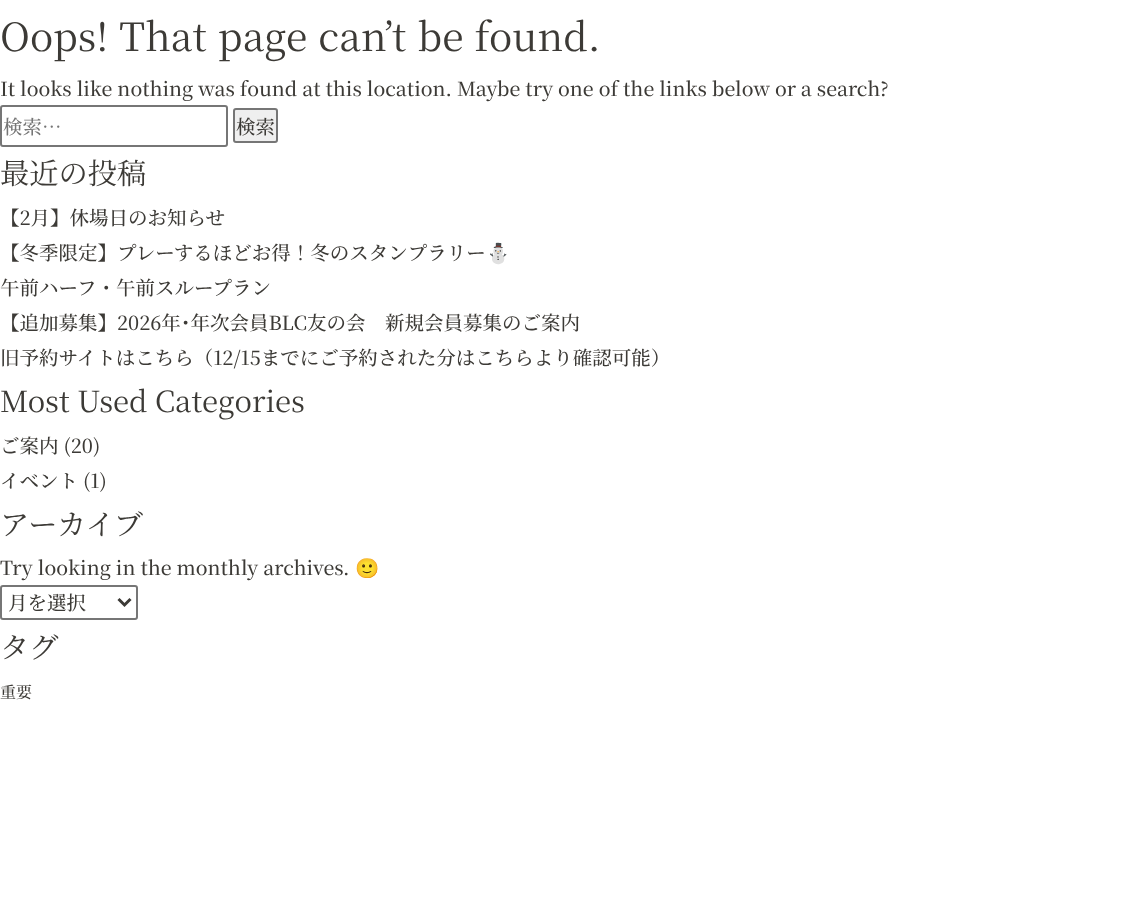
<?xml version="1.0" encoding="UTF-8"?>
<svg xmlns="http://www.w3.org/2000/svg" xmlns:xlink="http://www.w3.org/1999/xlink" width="1146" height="908">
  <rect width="100%" height="100%" fill="#ffffff" />
  <rect x="1" y="106" width="226" height="40" rx="2" fill="none" stroke="#767676" stroke-width="2" />
  <rect x="234" y="109" width="43" height="33" rx="2" fill="#efefef" stroke="#767676" stroke-width="2" />
  <rect x="1" y="586" width="136" height="33" rx="2" fill="none" stroke="#767676" stroke-width="2" />
  <path d="M 118.5 599 l 6 6 l 6 -6" fill="none" stroke="#3c3a36" stroke-width="3" />
  <text x="0" y="51" word-spacing="1" style="font-family: Noto Serif JP; font-size: 39px; fill: #3c3a36">Oops! That page can’t be found.</text>
  <text x="0" y="96" style="font-family: Noto Serif JP; font-size: 19.5px; font-weight: 500; fill: #3c3a36">It looks like nothing was found at this location. Maybe try one of the links below or a search?</text>
  <text x="3" y="134" style="font-family: Noto Serif JP; font-size: 19.5px; font-weight: 500; fill: #757575">検索…</text>
  <text x="236" y="134" style="font-family: Noto Serif JP; font-size: 19.5px; font-weight: 500; fill: #3c3a36">検索</text>
  <text x="0" y="184" style="font-family: Noto Serif JP; font-size: 29.25px; fill: #3c3a36">最近の投稿</text>
  <text x="0" y="225" style="font-family: Noto Serif JP; font-size: 19.5px; font-weight: 500; fill: #3c3a36">【2月】休場日のお知らせ</text>
  <text x="0" y="260" style="font-family: Noto Serif JP; font-size: 19.5px; font-weight: 500; fill: #3c3a36">【冬季限定】プレーするほどお得！冬のスタンプラリー</text>
  <text x="486" y="260" style="font-family: Noto Color Emoji; font-size: 19.5px; fill: #3c3a36">⛄</text>
  <text x="0" y="295" style="font-family: Noto Serif JP; font-size: 19.5px; font-weight: 500; fill: #3c3a36">午前ハーフ・午前スループラン</text>
  <text x="0" y="330" style="font-family: Noto Serif JP; font-size: 19.5px; font-weight: 500; fill: #3c3a36">【追加募集】2026年･年次会員BLC友の会　新規会員募集のご案内</text>
  <text x="0" y="365" style="font-family: Noto Serif JP; font-size: 19.5px; font-weight: 500; fill: #3c3a36">旧予約サイトはこちら（12/15までにご予約された分はこちらより確認可能）</text>
  <text x="0" y="412" style="font-family: Noto Serif JP; font-size: 29.25px; fill: #3c3a36">Most Used Categories</text>
  <text x="0" y="453" style="font-family: Noto Serif JP; font-size: 19.5px; font-weight: 500; fill: #3c3a36">ご案内 (20)</text>
  <text x="0" y="488" style="font-family: Noto Serif JP; font-size: 19.5px; font-weight: 500; fill: #3c3a36">イベント (1)</text>
  <text x="0" y="535" style="font-family: Noto Serif JP; font-size: 29.25px; fill: #3c3a36">アーカイブ</text>
  <text x="0" y="575" style="font-family: Noto Serif JP; font-size: 19.5px; font-weight: 500; fill: #3c3a36">Try looking in the monthly archives.</text>
  <text x="355" y="575" style="font-family: Noto Color Emoji; font-size: 19.5px; fill: #3c3a36">🙂</text>
  <text x="8" y="610" style="font-family: Noto Serif JP; font-size: 19.5px; font-weight: 500; fill: #3c3a36">月を選択</text>
  <text x="0" y="658" style="font-family: Noto Serif JP; font-size: 29.25px; fill: #3c3a36">タグ</text>
  <text x="0" y="698" style="font-family: Noto Serif JP; font-size: 16px; font-weight: 500; fill: #3c3a36">重要</text>
</svg>
